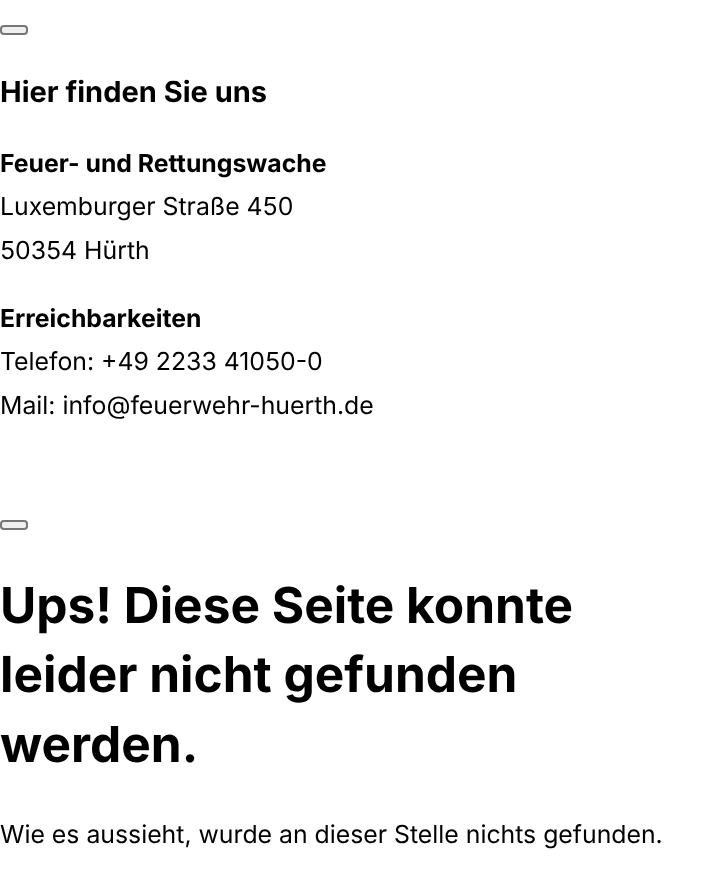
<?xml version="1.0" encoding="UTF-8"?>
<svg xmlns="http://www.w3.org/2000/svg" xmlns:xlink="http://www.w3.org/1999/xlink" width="707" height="875">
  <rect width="100%" height="100%" fill="#ffffff" />
  <rect x="1" y="26" width="26" height="8" rx="3" fill="#efefef" stroke="#767676" stroke-width="2" />
  <rect x="1" y="521" width="26" height="8" rx="3" fill="#efefef" stroke="#767676" stroke-width="2" />
  <text x="0" y="102" style="font-family: Inter; font-size: 29px; font-weight: bold; fill: #000000">Hier finden Sie uns</text>
  <text x="0" y="172" style="font-family: Inter; font-size: 24.8px; font-weight: bold; fill: #000000">Feuer- und Rettungswache</text>
  <text x="0" y="215" style="font-family: Inter; font-size: 24.8px; fill: #000000">Luxemburger Straße 450</text>
  <text x="0" y="259" style="font-family: Inter; font-size: 24.8px; fill: #000000">50354 Hürth</text>
  <text x="0" y="327" style="font-family: Inter; font-size: 24.8px; font-weight: bold; fill: #000000">Erreichbarkeiten</text>
  <text x="0" y="370" style="font-family: Inter; font-size: 24.8px; fill: #000000">Telefon: +49 2233 41050-0</text>
  <text x="0" y="414" style="font-family: Inter; font-size: 24.8px; fill: #000000">Mail: info@feuerwehr-huerth.de</text>
  <text x="0" y="623" style="font-family: Inter; font-size: 49.6px; font-weight: bold; fill: #000000">Ups! Diese Seite konnte</text>
  <text x="0" y="692" style="font-family: Inter; font-size: 49.6px; font-weight: bold; fill: #000000">leider nicht gefunden</text>
  <text x="0" y="762" style="font-family: Inter; font-size: 49.6px; font-weight: bold; fill: #000000">werden.</text>
  <text x="0" y="843" style="font-family: Inter; font-size: 24.8px; fill: #000000">Wie es aussieht, wurde an dieser Stelle nichts gefunden.</text>
</svg>
